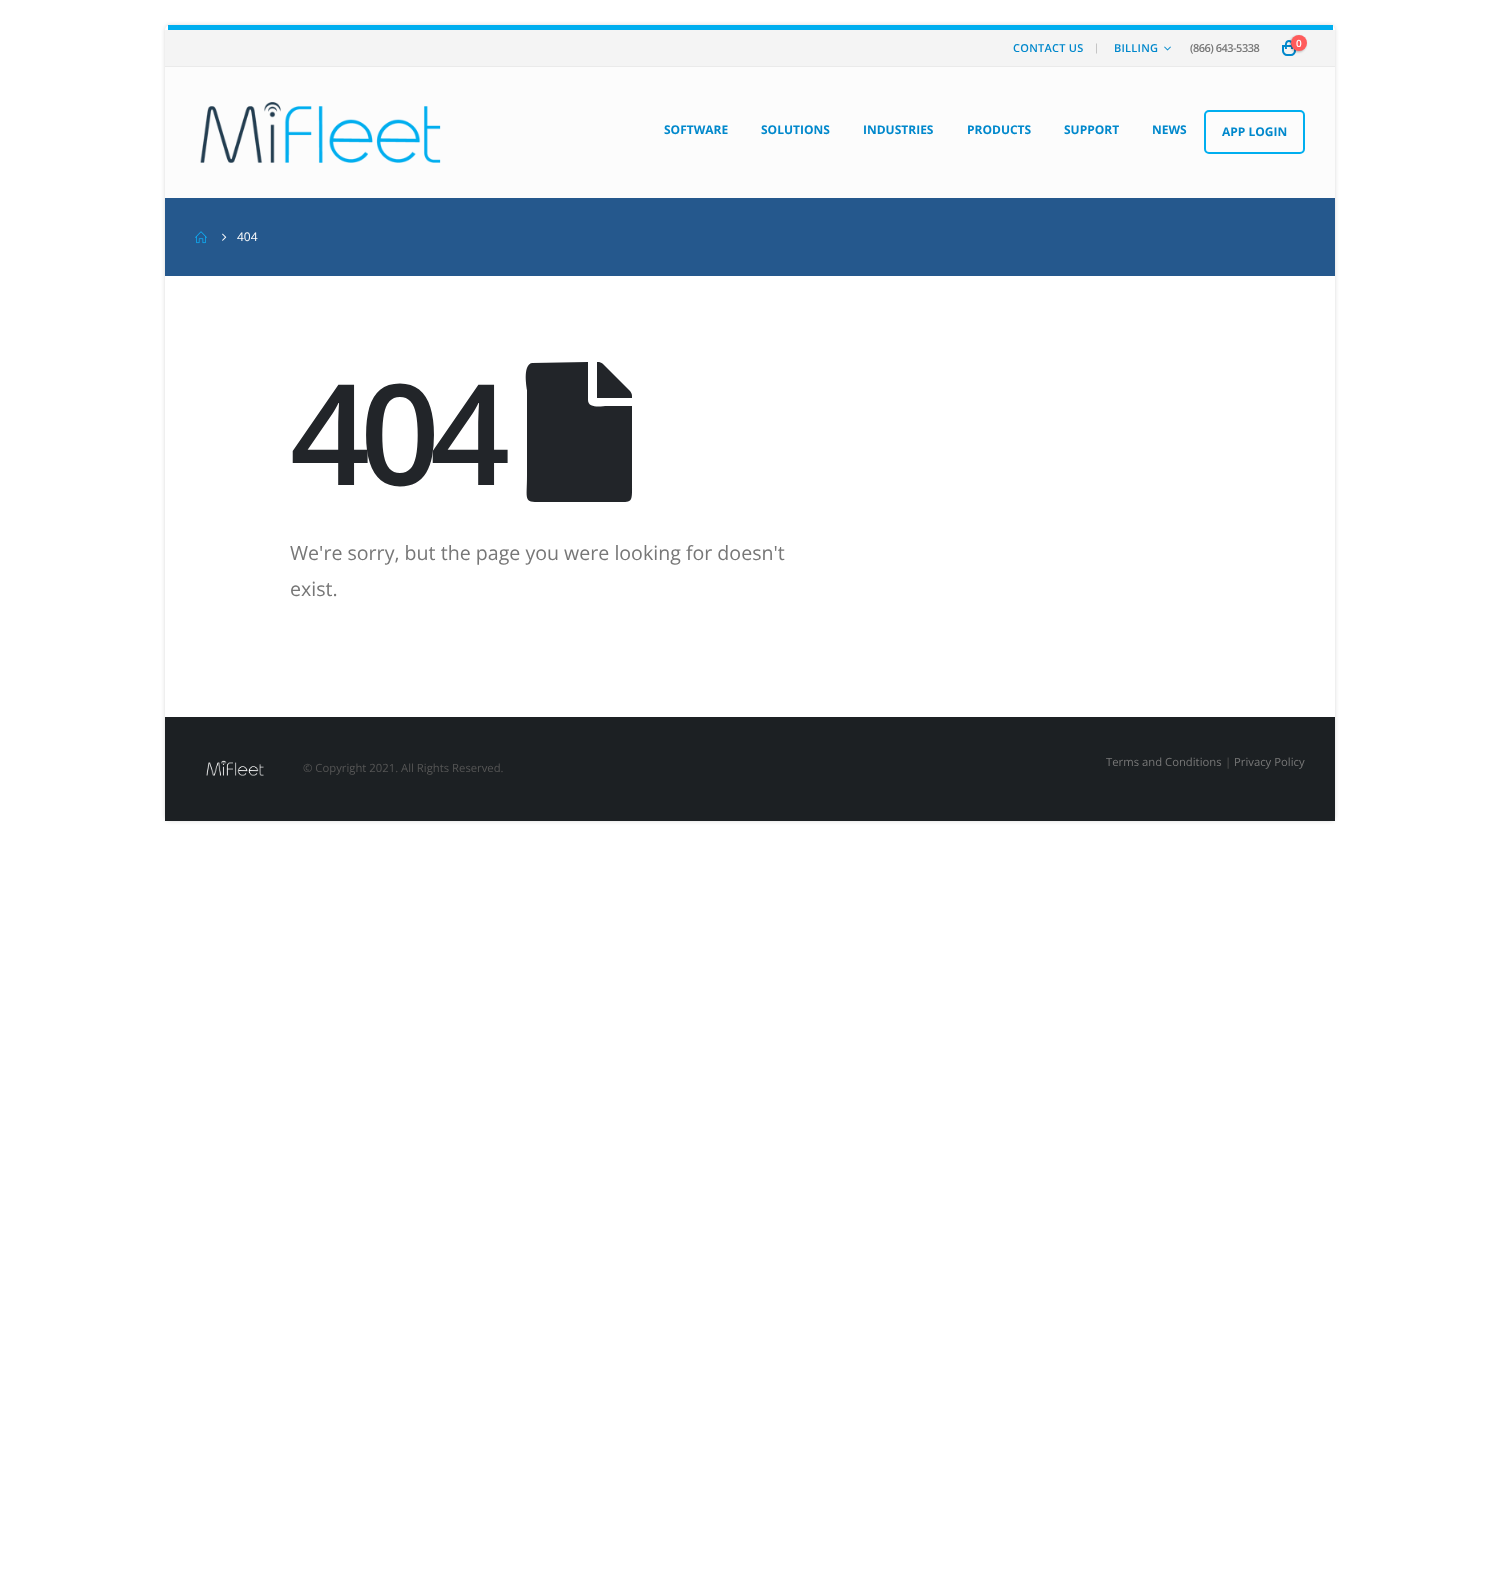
<?xml version="1.0" encoding="UTF-8"?>
<svg xmlns="http://www.w3.org/2000/svg" xmlns:xlink="http://www.w3.org/1999/xlink" width="1500" height="1593">
  <rect width="100%" height="100%" fill="#ffffff" />
  <rect x="165" y="25" width="1170" height="796" rx="5" fill="#000000" fill-opacity="0.15" filter="blur(2px)" />
  <rect x="165" y="25" width="1170" height="796" rx="5" fill="#ffffff" />
  <rect x="168" y="25" width="1165" height="5" fill="#00aeef" />
  <rect x="165" y="30" width="1170" height="36" fill="#f4f4f4" />
  <rect x="165" y="66" width="1170" height="1" fill="#eaeaea" />
  <image x="1164" y="46" width="7" height="5" xlink:href="image1.png" />
  <path d="M 1283 46 h 12 v 5 c 0 2 -2 4 -4 4 h -4 c -2 0 -4 -2 -4 -4 z" fill="none" stroke="#0088cc" stroke-width="2" />
  <path d="M 1289 40 c 5 0 4 6 4 9 h -8 c 0 -3 -1 -9 4 -9 z m 0 2 c 3 0 2 5 2 7 h -4 c 0 -2 -1 -7 2 -7 z" fill="#0088cc" fill-rule="evenodd" />
  <rect x="1290" y="36" width="16" height="16" rx="8" fill="#000000" fill-opacity="0.3" filter="blur(1px)" />
  <circle cx="1299" cy="43" r="8" fill="#ff5b5b" />
  <rect x="165" y="67" width="1170" height="131" fill="#fcfcfc" />
  <image x="200" y="102" width="241" height="61" xlink:href="image2.png" />
  <rect x="1205" y="111" width="99" height="42" rx="4" fill="none" stroke="#00aeef" stroke-width="2" />
  <rect x="165" y="198" width="1170" height="78" fill="#25588d" />
  <image x="195" y="231" width="12" height="13" xlink:href="image3.png" />
  <image x="222" y="233" width="5" height="8" xlink:href="image4.png" />
  <path d="M 588 400 c 0 9 14 6 19 6 h 25 v 75 c 0 24 2 21 -22 21 h -61 c -27 0 -22 2 -22 -27 v -85 c 0 -1 -5 -25 5 -27 l 56 -1 z m 44 -4 v 2 h -35 v -36 h 2 c 1 0 3 1 4 2 l 27 27 c 1 1 2 3 2 5 z" fill="#222529" />
  <rect x="165" y="717" width="1170" height="104" fill="#1c2023" />
  <image x="206" y="760" width="58" height="16" xlink:href="image5.png" />
  <text x="1013" y="52" style="font-family: Open Sans; font-size: 11px; font-weight: 600; letter-spacing: 0.25px; fill: #0088cc">CONTACT US</text>
  <text x="1094" y="51" style="font-family: Open Sans; font-size: 10px; font-weight: 300; fill: #909090">|</text>
  <text x="1114" y="52" style="font-family: Open Sans; font-size: 11px; font-weight: 600; letter-spacing: 0.25px; fill: #0088cc">BILLING</text>
  <text x="1190" y="52" style="font-family: Open Sans; font-size: 11px; font-weight: 600; letter-spacing: -0.5px; fill: #777777">(866) 643-5338</text>
  <text x="1296" y="47" style="font-family: Open Sans; font-size: 10px; font-weight: 600; fill: #ffffff">0</text>
  <text x="664" y="134" style="font-family: Open Sans; font-size: 12px; font-weight: bold; fill: #0088cc">SOFTWARE</text>
  <text x="761" y="134" style="font-family: Open Sans; font-size: 12px; font-weight: bold; fill: #0088cc">SOLUTIONS</text>
  <text x="863" y="134" style="font-family: Open Sans; font-size: 12px; font-weight: bold; fill: #0088cc">INDUSTRIES</text>
  <text x="967" y="134" style="font-family: Open Sans; font-size: 12px; font-weight: bold; fill: #0088cc">PRODUCTS</text>
  <text x="1064" y="134" style="font-family: Open Sans; font-size: 12px; font-weight: bold; fill: #0088cc">SUPPORT</text>
  <text x="1152" y="134" style="font-family: Open Sans; font-size: 12px; font-weight: bold; fill: #0088cc">NEWS</text>
  <text x="1222" y="136" style="font-family: Open Sans; font-size: 12px; font-weight: bold; fill: #0088cc">APP LOGIN</text>
  <text x="237" y="241" style="font-family: Open Sans; font-size: 12px; fill: #ffffff">404</text>
  <text x="290" y="485" style="font-family: Open Sans; font-size: 140px; font-weight: 600; letter-spacing: -10px; fill: #222529">404</text>
  <text x="290" y="560" style="font-family: Open Sans; font-size: 19.6px; fill: #777777">We're sorry, but the page you were looking for doesn't</text>
  <text x="290" y="596" style="font-family: Open Sans; font-size: 19.6px; fill: #777777">exist.</text>
  <text x="303" y="772" style="font-family: Open Sans; font-size: 11.3px; fill: #555555">© Copyright 2021. All Rights Reserved.</text>
  <text x="1106" y="766" style="font-family: Open Sans; font-size: 11.3px; fill: #777777">Terms and Conditions</text>
  <text x="1225" y="766" style="font-family: Open Sans; font-size: 11.3px; fill: #555555">|</text>
  <text x="1234" y="766" style="font-family: Open Sans; font-size: 11.3px; fill: #777777">Privacy Policy</text>
</svg>
